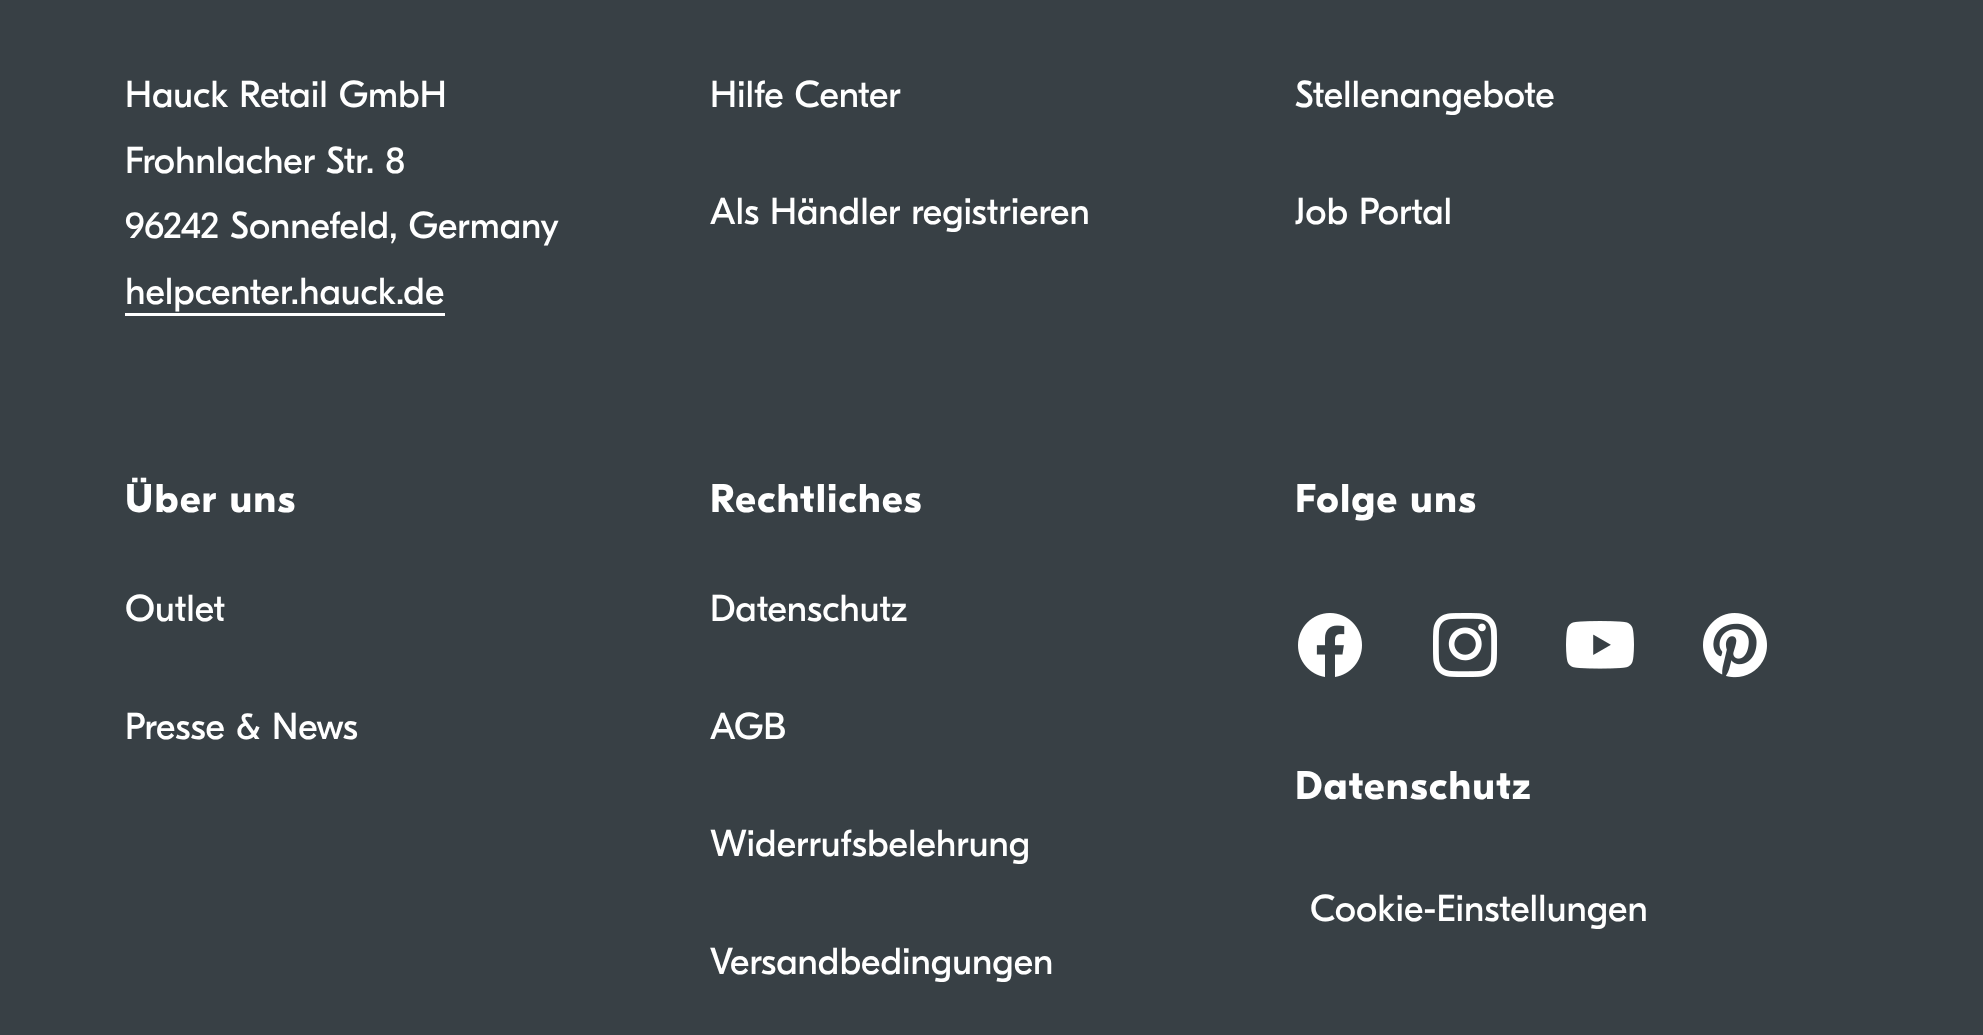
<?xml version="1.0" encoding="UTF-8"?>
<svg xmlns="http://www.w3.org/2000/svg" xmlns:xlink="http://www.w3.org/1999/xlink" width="1983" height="1035">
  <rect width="100%" height="100%" fill="#384045" />
  <rect x="125" y="313" width="320" height="3" fill="#ffffff" />
  <image x="1298" y="613" width="64" height="64" xlink:href="image1.png" />
  <image x="1433" y="613" width="64" height="64" xlink:href="image2.png" />
  <image x="1566" y="621" width="68" height="48" xlink:href="image3.png" />
  <image x="1703" y="613" width="64" height="65" xlink:href="image4.png" />
  <text x="125" y="107" style="font-family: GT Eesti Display; font-size: 37.5px; fill: #ffffff">Hauck Retail GmbH</text>
  <text x="125" y="173" style="font-family: GT Eesti Display; font-size: 37.5px; fill: #ffffff">Frohnlacher Str. 8</text>
  <text x="125" y="238" style="font-family: GT Eesti Display; font-size: 37.5px; fill: #ffffff">96242 Sonnefeld, Germany</text>
  <text x="125" y="304" style="font-family: GT Eesti Display; font-size: 37.5px; fill: #ffffff">helpcenter.hauck.de</text>
  <text x="710" y="107" style="font-family: GT Eesti Display; font-size: 37.5px; fill: #ffffff">Hilfe Center</text>
  <text x="710" y="224" style="font-family: GT Eesti Display; font-size: 37.5px; fill: #ffffff">Als Händler registrieren</text>
  <text x="1295" y="107" style="font-family: GT Eesti Display; font-size: 37.5px; fill: #ffffff">Stellenangebote</text>
  <text x="1295" y="224" style="font-family: GT Eesti Display; font-size: 37.5px; fill: #ffffff">Job Portal</text>
  <text x="125" y="512" style="font-family: GT Eesti Display; font-size: 40px; font-weight: bold; letter-spacing: 1.5px; fill: #ffffff">Über uns</text>
  <text x="125" y="621" style="font-family: GT Eesti Display; font-size: 37.5px; fill: #ffffff">Outlet</text>
  <text x="125" y="739" style="font-family: GT Eesti Display; font-size: 37.5px; fill: #ffffff">Presse &amp; News</text>
  <text x="710" y="512" style="font-family: GT Eesti Display; font-size: 40px; font-weight: bold; letter-spacing: 1.5px; fill: #ffffff">Rechtliches</text>
  <text x="710" y="621" style="font-family: GT Eesti Display; font-size: 37.5px; fill: #ffffff">Datenschutz</text>
  <text x="710" y="739" style="font-family: GT Eesti Display; font-size: 37.5px; fill: #ffffff">AGB</text>
  <text x="710" y="856" style="font-family: GT Eesti Display; font-size: 37.5px; fill: #ffffff">Widerrufsbelehrung</text>
  <text x="710" y="974" style="font-family: GT Eesti Display; font-size: 37.5px; fill: #ffffff">Versandbedingungen</text>
  <text x="1295" y="512" style="font-family: GT Eesti Display; font-size: 40px; font-weight: bold; letter-spacing: 1.5px; fill: #ffffff">Folge uns</text>
  <text x="1295" y="799" style="font-family: GT Eesti Display; font-size: 40px; font-weight: bold; letter-spacing: 1.5px; fill: #ffffff">Datenschutz</text>
  <text x="1310" y="921" style="font-family: GT Eesti Display; font-size: 37.5px; fill: #ffffff">Cookie-Einstellungen</text>
</svg>
